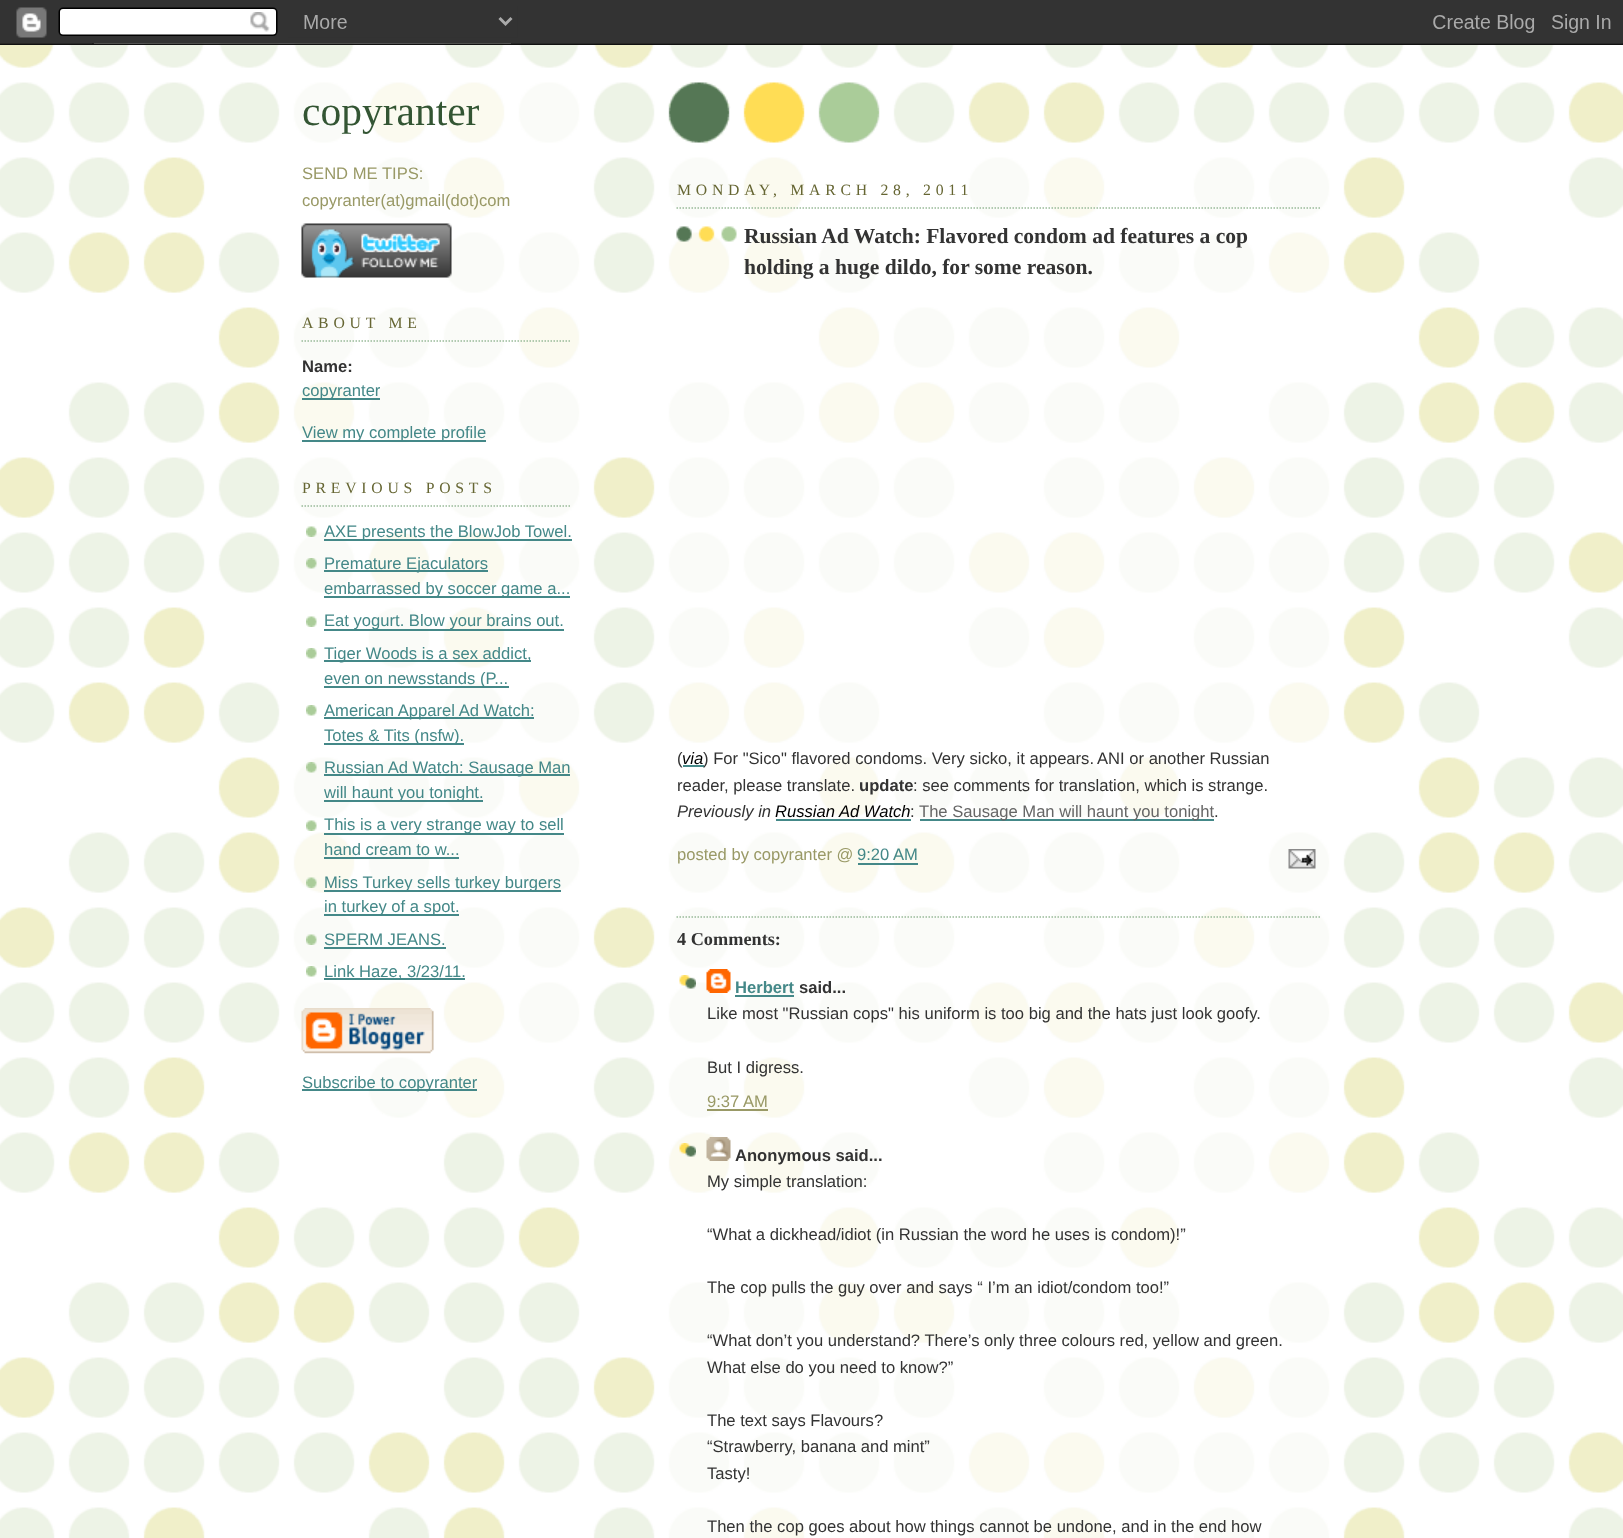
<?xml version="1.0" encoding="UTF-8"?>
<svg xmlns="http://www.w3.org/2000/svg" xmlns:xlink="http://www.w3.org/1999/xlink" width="1623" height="1538">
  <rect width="100%" height="100%" fill="#ffffff" />
  <image x="0" y="43" width="1623" height="1495" xlink:href="image1.png" />
  <image x="0" y="0" width="1623" height="45" xlink:href="image2.png" />
  <image x="668" y="82" width="212" height="62" xlink:href="image3.png" />
  <image x="383" y="1113" width="169" height="21" xlink:href="image4.png" />
  <image x="293" y="82" width="287" height="1031" xlink:href="image5.png" />
  <image x="301" y="223" width="151" height="55" xlink:href="image6.png" />
  <path d="M 301.5 341 h 270" fill="none" stroke="#99bb99" stroke-width="1.5" stroke-dasharray="1.5 1.5" />
  <rect x="302" y="398" width="78" height="2" fill="#448888" />
  <rect x="302" y="440" width="184" height="2" fill="#448888" />
  <path d="M 301.5 506 h 270" fill="none" stroke="#99bb99" stroke-width="1.5" stroke-dasharray="1.5 1.5" />
  <image x="306" y="526" width="11" height="11" xlink:href="image7.png" />
  <rect x="324" y="539" width="248" height="2" fill="#448888" />
  <image x="306" y="558" width="11" height="11" xlink:href="image8.png" />
  <rect x="324" y="570" width="164" height="2" fill="#448888" />
  <rect x="324" y="596" width="246" height="2" fill="#448888" />
  <image x="306" y="616" width="11" height="11" xlink:href="image9.png" />
  <rect x="324" y="629" width="240" height="2" fill="#448888" />
  <image x="306" y="648" width="11" height="11" xlink:href="image10.png" />
  <rect x="324" y="660" width="207" height="2" fill="#448888" />
  <rect x="324" y="686" width="185" height="2" fill="#448888" />
  <image x="306" y="705" width="11" height="11" xlink:href="image10.png" />
  <rect x="324" y="717" width="210" height="2" fill="#448888" />
  <rect x="324" y="743" width="140" height="2" fill="#448888" />
  <image x="306" y="762" width="11" height="11" xlink:href="image11.png" />
  <rect x="324" y="774" width="246" height="2" fill="#448888" />
  <rect x="324" y="800" width="159" height="2" fill="#448888" />
  <image x="306" y="820" width="11" height="11" xlink:href="image9.png" />
  <rect x="324" y="833" width="240" height="2" fill="#448888" />
  <rect x="324" y="857" width="135" height="2" fill="#448888" />
  <image x="306" y="877" width="11" height="11" xlink:href="image12.png" />
  <rect x="324" y="890" width="237" height="2" fill="#448888" />
  <rect x="324" y="914" width="135" height="2" fill="#448888" />
  <image x="306" y="934" width="11" height="11" xlink:href="image13.png" />
  <rect x="324" y="947" width="122" height="2" fill="#448888" />
  <image x="306" y="966" width="11" height="11" xlink:href="image14.png" />
  <rect x="324" y="978" width="141" height="2" fill="#448888" />
  <image x="301" y="1008" width="133" height="46" xlink:href="image15.png" />
  <rect x="302" y="1089" width="175" height="2" fill="#448888" />
  <image x="668" y="157" width="662" height="1381" xlink:href="image16.png" />
  <path d="M 676.5 208 h 645" fill="none" stroke="#99bb99" stroke-width="1.5" stroke-dasharray="1.5 1.5" />
  <image x="676" y="226" width="61" height="16" xlink:href="image17.png" />
  <rect x="683" y="765" width="21" height="2" fill="#448888" />
  <rect x="776" y="819" width="135" height="2" fill="#448888" />
  <rect x="920" y="819" width="294" height="2" fill="#448888" />
  <rect x="858" y="863" width="60" height="2" fill="#448888" />
  <image x="1288" y="849" width="28" height="20" xlink:href="image18.png" />
  <path d="M 676.5 917 h 645" fill="none" stroke="#99bb99" stroke-width="1.5" stroke-dasharray="1.5 1.5" />
  <image x="679" y="975" width="17" height="14" xlink:href="image19.png" />
  <image x="706" y="969" width="25" height="24" xlink:href="image20.png" />
  <rect x="735" y="995" width="59" height="2" fill="#448888" />
  <rect x="707" y="1109" width="61" height="2" fill="#999966" />
  <image x="679" y="1143" width="17" height="14" xlink:href="image21.png" />
  <image x="706" y="1137" width="25" height="24" xlink:href="image22.png" />
  <text x="302" y="125" style="font-family: Liberation Serif; font-size: 41.5px; fill: #335533">copyranter</text>
  <text x="302" y="179" style="font-family: Liberation Sans; font-size: 16.6px; fill: #999966">SEND ME TIPS:</text>
  <text x="302" y="206" style="font-family: Liberation Sans; font-size: 16.6px; fill: #999966">copyranter(at)gmail(dot)com</text>
  <text x="302" y="328" style="font-family: Liberation Serif; font-size: 15.75px; letter-spacing: 4.75px; fill: #666633">ABOUT ME</text>
  <text x="302" y="372" style="font-family: Liberation Sans; font-size: 16.6px; font-weight: bold; fill: #333333">Name:</text>
  <text x="302" y="396" style="font-family: Liberation Sans; font-size: 16.6px; fill: #448888">copyranter</text>
  <text x="302" y="438" style="font-family: Liberation Sans; font-size: 16.6px; fill: #448888">View my complete profile</text>
  <text x="302" y="493" style="font-family: Liberation Serif; font-size: 15.75px; letter-spacing: 4.75px; fill: #666633">PREVIOUS POSTS</text>
  <text x="324" y="537" style="font-family: Liberation Sans; font-size: 16.6px; fill: #448888">AXE presents the BlowJob Towel.</text>
  <text x="324" y="569" style="font-family: Liberation Sans; font-size: 16.6px; fill: #448888">Premature Ejaculators</text>
  <text x="324" y="594" style="font-family: Liberation Sans; font-size: 16.6px; fill: #448888">embarrassed by soccer game a...</text>
  <text x="324" y="626" style="font-family: Liberation Sans; font-size: 16.6px; fill: #448888">Eat yogurt. Blow your brains out.</text>
  <text x="324" y="659" style="font-family: Liberation Sans; font-size: 16.6px; fill: #448888">Tiger Woods is a sex addict,</text>
  <text x="324" y="684" style="font-family: Liberation Sans; font-size: 16.6px; fill: #448888">even on newsstands (P...</text>
  <text x="324" y="716" style="font-family: Liberation Sans; font-size: 16.6px; fill: #448888">American Apparel Ad Watch:</text>
  <text x="324" y="741" style="font-family: Liberation Sans; font-size: 16.6px; fill: #448888">Totes &amp; Tits (nsfw).</text>
  <text x="324" y="773" style="font-family: Liberation Sans; font-size: 16.6px; fill: #448888">Russian Ad Watch: Sausage Man</text>
  <text x="324" y="798" style="font-family: Liberation Sans; font-size: 16.6px; fill: #448888">will haunt you tonight.</text>
  <text x="324" y="830" style="font-family: Liberation Sans; font-size: 16.6px; fill: #448888">This is a very strange way to sell</text>
  <text x="324" y="855" style="font-family: Liberation Sans; font-size: 16.6px; fill: #448888">hand cream to w...</text>
  <text x="324" y="888" style="font-family: Liberation Sans; font-size: 16.6px; fill: #448888">Miss Turkey sells turkey burgers</text>
  <text x="324" y="912" style="font-family: Liberation Sans; font-size: 16.6px; fill: #448888">in turkey of a spot.</text>
  <text x="324" y="945" style="font-family: Liberation Sans; font-size: 16.6px; fill: #448888">SPERM JEANS.</text>
  <text x="324" y="977" style="font-family: Liberation Sans; font-size: 16.6px; fill: #448888">Link Haze, 3/23/11.</text>
  <text x="302" y="1088" style="font-family: Liberation Sans; font-size: 16.6px; fill: #448888">Subscribe to copyranter</text>
  <text x="677" y="195" style="font-family: Liberation Serif; font-size: 15.75px; letter-spacing: 4.75px; fill: #666633">MONDAY, MARCH 28, 2011</text>
  <text x="744" y="243" style="font-family: Liberation Serif; font-size: 21.55px; font-weight: bold; fill: #333333">Russian Ad Watch: Flavored condom ad features a cop</text>
  <text x="744" y="274" style="font-family: Liberation Serif; font-size: 21.55px; font-weight: bold; fill: #333333">holding a huge dildo, for some reason.</text>
  <text x="677" y="764" style="font-family: Liberation Sans; font-size: 16.6px; fill: #333333">(</text>
  <text x="682" y="764" style="font-family: Liberation Sans; font-size: 16.6px; font-style: italic; fill: #000000">via</text>
  <text x="703" y="764" style="font-family: Liberation Sans; font-size: 16.6px; fill: #333333">) For "Sico</text>
  <text x="781" y="764" style="font-family: Liberation Sans; font-size: 16.6px; fill: #333333">" flavored condoms. Very sicko, it appears.</text>
  <text x="1097" y="764" style="font-family: Liberation Sans; font-size: 16.6px; fill: #333333">ANI or another Russian</text>
  <text x="677" y="791" style="font-family: Liberation Sans; font-size: 16.6px; fill: #333333">reader, please translate.</text>
  <text x="859" y="791" style="font-family: Liberation Sans; font-size: 16.6px; font-weight: bold; fill: #333333">update</text>
  <text x="913" y="791" style="font-family: Liberation Sans; font-size: 16.6px; fill: #333333">: see comments for translation, which is strange.</text>
  <text x="677" y="817" style="font-family: Liberation Sans; font-size: 16.6px; font-style: italic; fill: #333333">Previously in</text>
  <text x="775" y="817" style="font-family: Liberation Sans; font-size: 16.6px; font-style: italic; fill: #000000">Russian Ad Watch</text>
  <text x="910" y="817" style="font-family: Liberation Sans; font-size: 16.6px; fill: #333333">:</text>
  <text x="919" y="817" style="font-family: Liberation Sans; font-size: 16.6px; fill: #666666">The Sausage Man will haunt you tonight</text>
  <text x="1214" y="817" style="font-family: Liberation Sans; font-size: 16.6px; fill: #333333">.</text>
  <text x="677" y="860" style="font-family: Liberation Sans; font-size: 16.6px; fill: #999966">posted by copyranter @</text>
  <text x="857" y="860" style="font-family: Liberation Sans; font-size: 16.6px; fill: #448888">9:20 AM</text>
  <text x="677" y="945" style="font-family: Liberation Serif; font-size: 18.25px; font-weight: bold; fill: #333333">4 Comments:</text>
  <text x="735" y="993" style="font-family: Liberation Sans; font-size: 16.6px; font-weight: bold; fill: #448888">Herbert</text>
  <text x="799" y="993" style="font-family: Liberation Sans; font-size: 16.6px; font-weight: bold; fill: #333333">said...</text>
  <text x="707" y="1019" style="font-family: Liberation Sans; font-size: 16.6px; fill: #333333">Like most "Russian cops" his uniform is too big and the hats just look goofy.</text>
  <text x="707" y="1073" style="font-family: Liberation Sans; font-size: 16.6px; fill: #333333">But I digress.</text>
  <text x="707" y="1107" style="font-family: Liberation Sans; font-size: 16.6px; fill: #999966">9:37 AM</text>
  <text x="735" y="1161" style="font-family: Liberation Sans; font-size: 16.6px; font-weight: bold; fill: #333333">Anonymous said...</text>
  <text x="707" y="1187" style="font-family: Liberation Sans; font-size: 16.6px; fill: #333333">My simple translation:</text>
  <text x="707" y="1240" style="font-family: Liberation Sans; font-size: 16.6px; fill: #333333">“What a dickhead/idiot (in Russian the word he uses is condom)!”</text>
  <text x="707" y="1293" style="font-family: Liberation Sans; font-size: 16.6px; fill: #333333">The cop pulls the guy over and says “ I’m an idiot/condom too!”</text>
  <text x="707" y="1346" style="font-family: Liberation Sans; font-size: 16.6px; fill: #333333">“What don’t you understand? There’s only three colours red, yellow and green.</text>
  <text x="707" y="1373" style="font-family: Liberation Sans; font-size: 16.6px; fill: #333333">What else do you need to know?”</text>
  <text x="707" y="1426" style="font-family: Liberation Sans; font-size: 16.6px; fill: #333333">The text says Flavours?</text>
  <text x="707" y="1452" style="font-family: Liberation Sans; font-size: 16.6px; fill: #333333">“Strawberry, banana and mint”</text>
  <text x="707" y="1479" style="font-family: Liberation Sans; font-size: 16.6px; fill: #333333">Tasty!</text>
  <text x="707" y="1532" style="font-family: Liberation Sans; font-size: 16.6px; fill: #333333">Then the cop goes about how things cannot be undone, and in the end how</text>
</svg>
